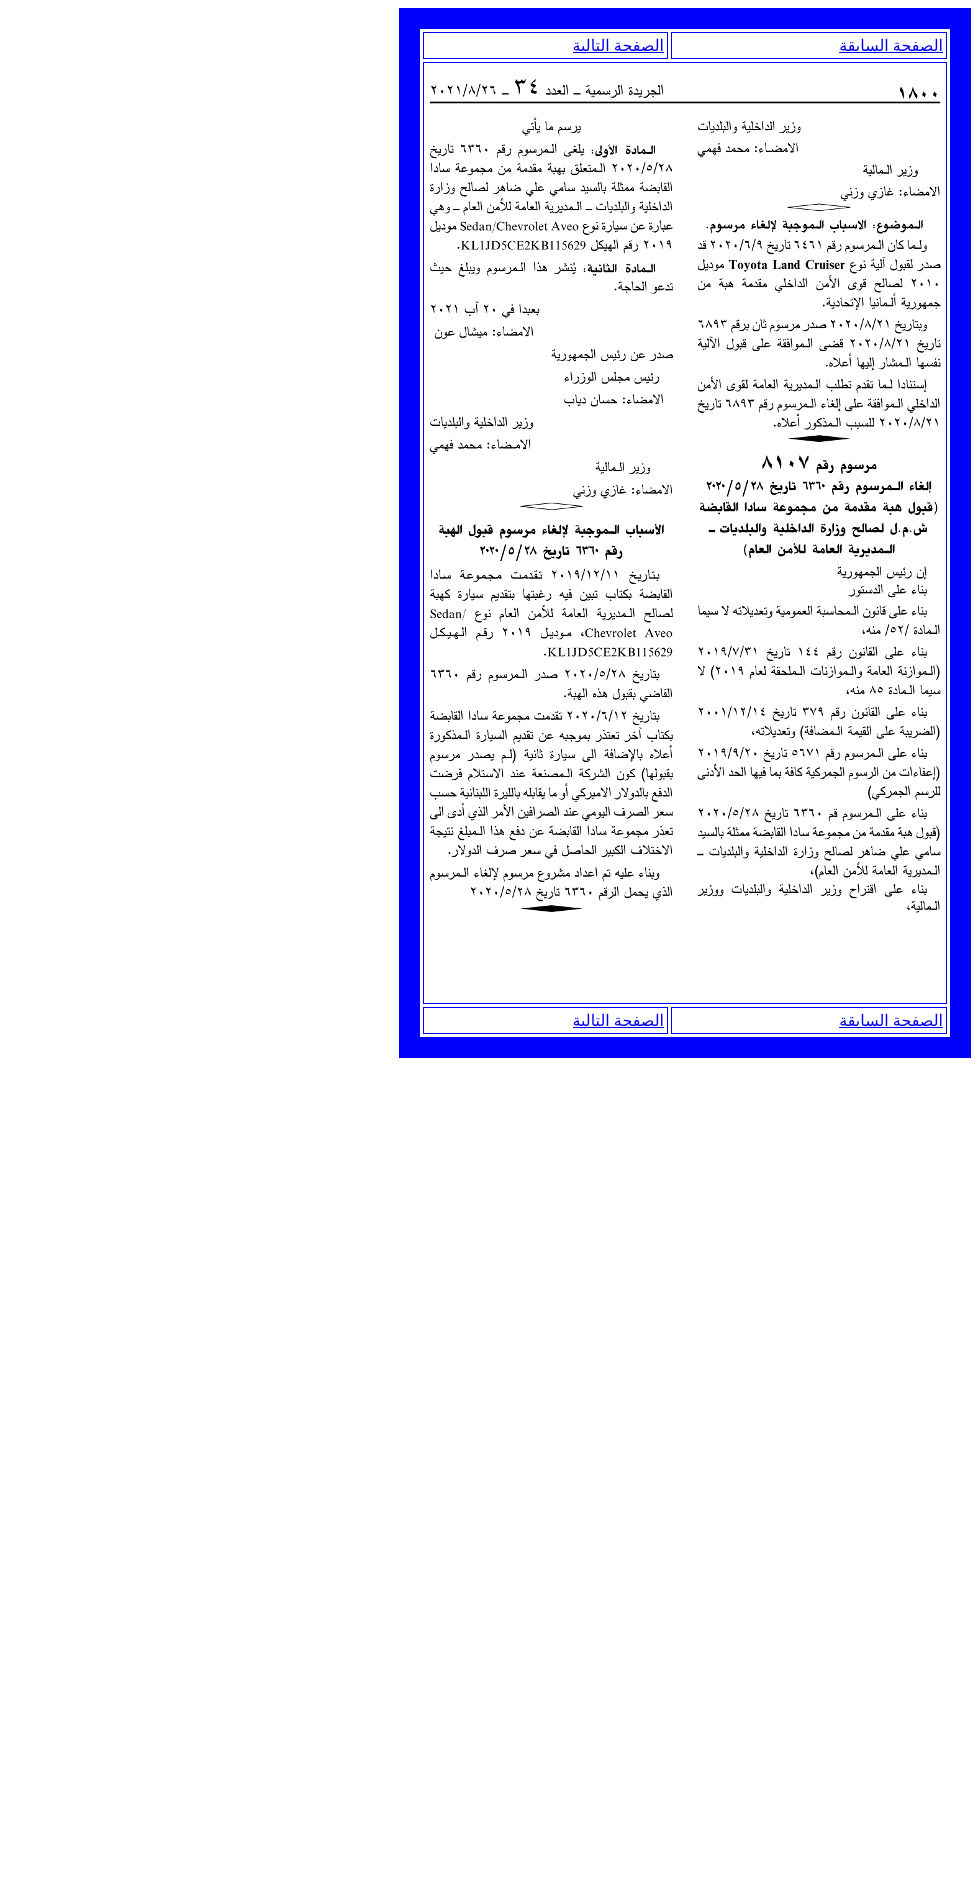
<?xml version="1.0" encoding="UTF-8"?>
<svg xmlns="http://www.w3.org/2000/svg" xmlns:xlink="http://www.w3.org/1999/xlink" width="979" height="1888">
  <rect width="100%" height="100%" fill="#ffffff" />
  <rect x="409.5" y="18.5" width="551" height="1029" fill="none" stroke="#0000ff" stroke-width="21" />
  <rect x="671.5" y="32.5" width="275" height="26" fill="none" stroke="#0000ff" />
  <rect x="839" y="52" width="104" height="1" fill="#0000ee" />
  <rect x="423.5" y="32.5" width="244" height="26" fill="none" stroke="#0000ff" />
  <rect x="573" y="52" width="91" height="1" fill="#0000ee" />
  <rect x="423.5" y="62.5" width="523" height="941" fill="none" stroke="#0000ff" />
  <image x="429" y="79" width="512" height="834" xlink:href="image1.png" />
  <rect x="671.5" y="1007.5" width="275" height="26" fill="none" stroke="#0000ff" />
  <rect x="839" y="1027" width="104" height="1" fill="#0000ee" />
  <rect x="423.5" y="1007.5" width="244" height="26" fill="none" stroke="#0000ff" />
  <rect x="573" y="1027" width="91" height="1" fill="#0000ee" />
  <text x="943" y="51" word-spacing="-1" style="font-family: DejaVu Sans; font-size: 16px; direction: rtl; fill: #0000ee">الصفحة السابقة</text>
  <text x="664" y="51" word-spacing="-1" style="font-family: DejaVu Sans; font-size: 16px; direction: rtl; fill: #0000ee">الصفحة التالية</text>
  <text x="943" y="1026" word-spacing="-1" style="font-family: DejaVu Sans; font-size: 16px; direction: rtl; fill: #0000ee">الصفحة السابقة</text>
  <text x="664" y="1026" word-spacing="-1" style="font-family: DejaVu Sans; font-size: 16px; direction: rtl; fill: #0000ee">الصفحة التالية</text>
</svg>
